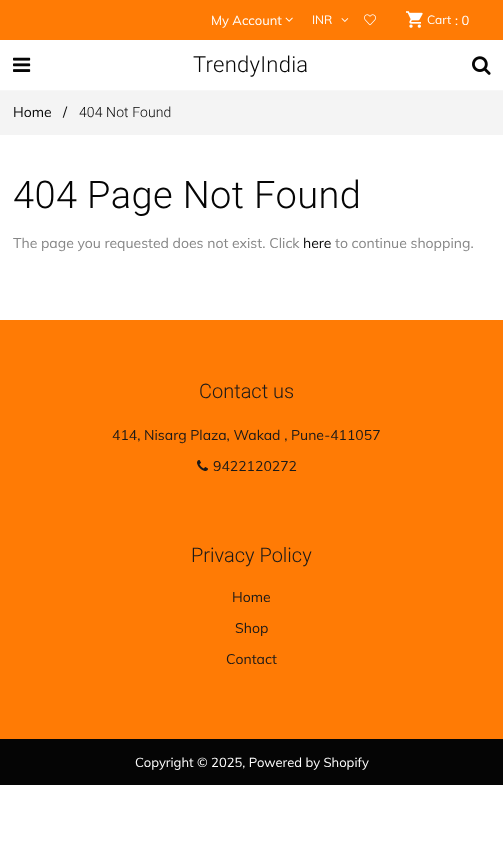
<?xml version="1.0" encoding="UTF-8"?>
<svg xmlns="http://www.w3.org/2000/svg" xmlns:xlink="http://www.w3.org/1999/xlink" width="503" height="858">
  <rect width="100%" height="100%" fill="#ffffff" />
  <rect width="503" height="40" fill="#ff7b05" />
  <image x="285" y="17" width="8" height="5" xlink:href="image1.png" />
  <image x="341" y="18" width="8" height="4" xlink:href="image2.png" />
  <image x="364" y="14" width="12" height="12" xlink:href="image3.png" />
  <image x="406" y="11" width="17" height="17" xlink:href="image4.png" />
  <rect y="90" width="503" height="1" fill="#f7f7f7" />
  <image x="13" y="57" width="18" height="15" xlink:href="image5.png" />
  <image x="472" y="56" width="19" height="19" xlink:href="image6.png" />
  <rect y="91" width="503" height="44" fill="#f4f4f4" />
  <rect y="320" width="503" height="419" fill="#ff7b05" />
  <image x="197" y="460" width="11" height="11" xlink:href="image7.png" />
  <rect y="739" width="503" height="46" fill="#050505" />
  <text x="211" y="25" style="font-family: Muli; font-size: 13px; fill: #ffffff">My Account</text>
  <text x="312" y="24" style="font-family: Muli; font-size: 12px; fill: #ffffff">INR</text>
  <text x="427" y="24" style="font-family: Muli; font-size: 12px; fill: #ffffff">Cart</text>
  <text x="455" y="25" style="font-family: Muli; font-size: 13px; fill: #ffffff">: 0</text>
  <text x="193" y="72" style="font-family: Roboto; font-size: 22px; font-weight: 300; letter-spacing: 0.25px; fill: #050505">TrendyIndia</text>
  <text x="13" y="117" style="font-family: Muli; font-size: 14px; fill: #050505">Home</text>
  <text x="63" y="117" style="font-family: Muli; font-size: 14px; fill: #050505">/</text>
  <text x="79" y="117" style="font-family: Roboto; font-size: 14px; font-weight: 300; letter-spacing: 0.1px; fill: #050505">404 Not Found</text>
  <text x="13" y="208" style="font-family: Roboto; font-size: 38px; font-weight: 300; letter-spacing: 0.4px; fill: #050505">404 Page Not Found</text>
  <text x="13" y="248" style="font-family: Muli; font-size: 14px; fill: #868686">The page you requested does not exist. Click</text>
  <text x="303" y="248" style="font-family: Muli; font-size: 14px; fill: #050505">here</text>
  <text x="335" y="248" style="font-family: Muli; font-size: 14px; fill: #868686">to continue shopping.</text>
  <text x="199" y="398" style="font-family: Roboto; font-size: 20px; font-weight: 300; fill: #1a1919">Contact us</text>
  <text x="112" y="440" style="font-family: Muli; font-size: 14px; fill: #1a1919">414, Nisarg Plaza, Wakad , Pune-411057</text>
  <text x="213" y="471" style="font-family: Muli; font-size: 14px; fill: #1a1919">9422120272</text>
  <text x="191" y="562" style="font-family: Roboto; font-size: 20px; font-weight: 300; fill: #1a1919">Privacy Policy</text>
  <text x="232" y="602" style="font-family: Muli; font-size: 14px; fill: #1a1919">Home</text>
  <text x="235" y="633" style="font-family: Muli; font-size: 14px; fill: #1a1919">Shop</text>
  <text x="226" y="664" style="font-family: Muli; font-size: 14px; fill: #1a1919">Contact</text>
  <text x="135" y="767" style="font-family: Muli; font-size: 13px; fill: #ffffff">Copyright © 2025, Powered by Shopify</text>
</svg>
